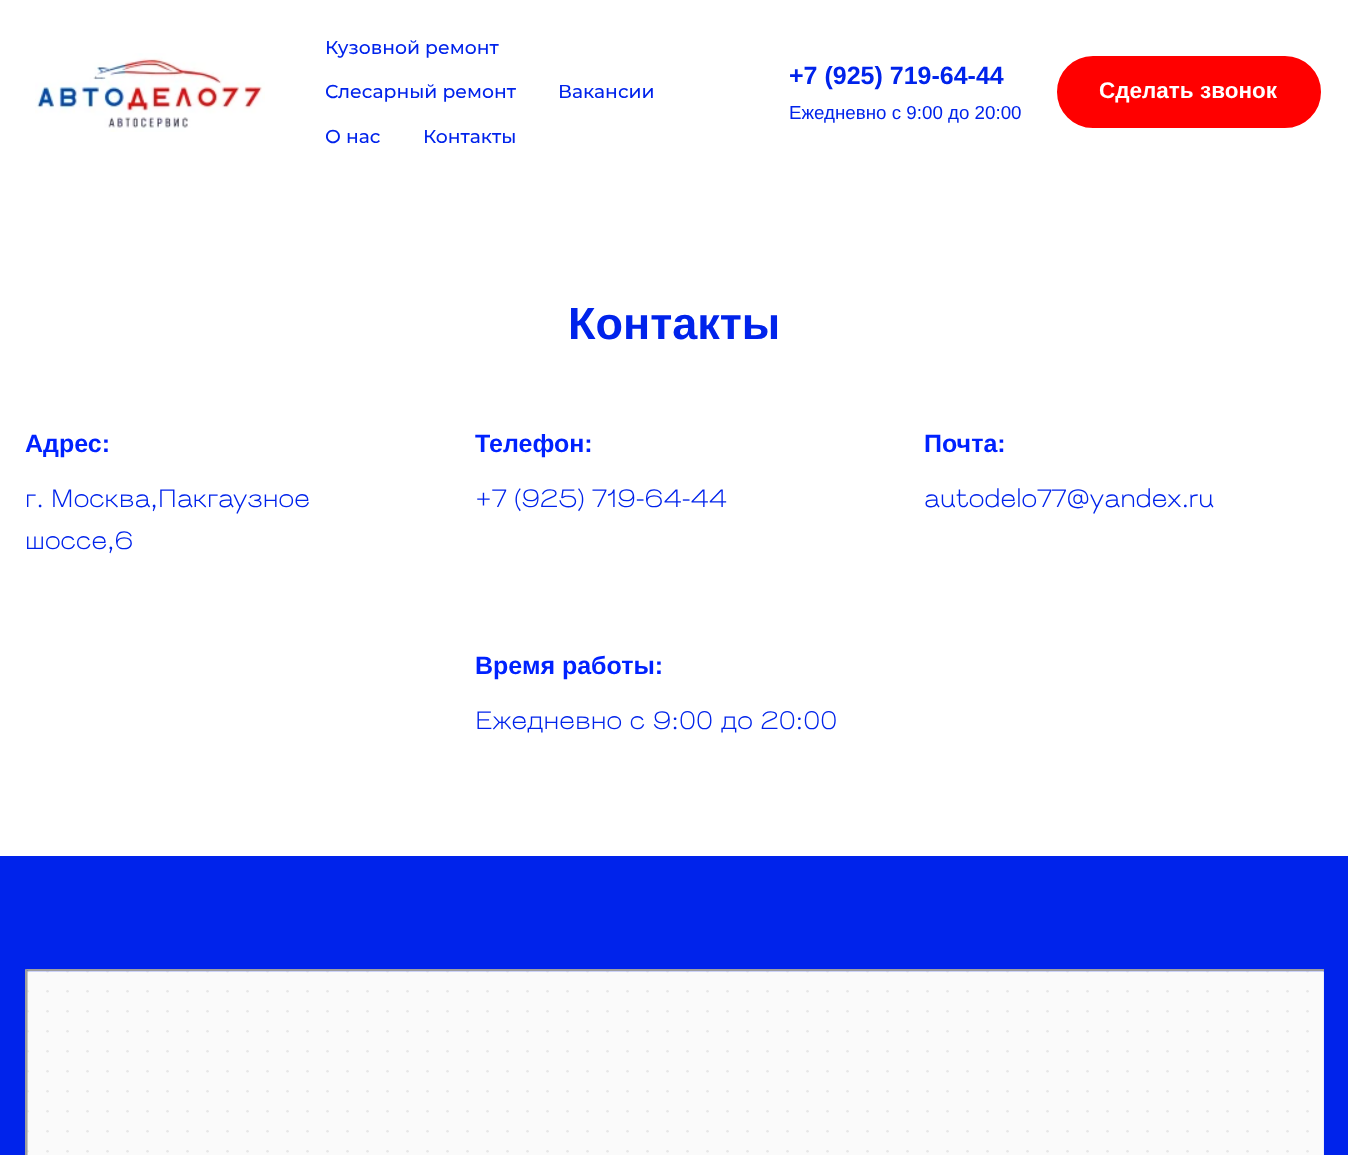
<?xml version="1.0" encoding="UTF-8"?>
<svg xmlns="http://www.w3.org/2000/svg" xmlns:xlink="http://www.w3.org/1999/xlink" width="1348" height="1155">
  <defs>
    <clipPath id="clip1"><rect x="25" y="969" width="1299" height="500" /></clipPath>
  </defs>
  <rect width="100%" height="100%" fill="#ffffff" />
  <image x="35" y="53" width="230" height="79" xlink:href="image1.png" />
  <rect x="1055.5" y="54.5" width="267" height="75" rx="37.5" fill="#ff0000" stroke="#ffffff" stroke-width="3" />
  <rect y="856" width="1348" height="299" fill="#0023eb" />
  <g clip-path="url(#clip1)">
    <path d="M 25 969 h 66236 l -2 2 h -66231 z" fill="#9f9f9f" />
  </g>
  <path d="M 25 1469 v -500 l 3 2 v 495 z" fill="#9f9f9f" />
  <image x="27" y="971" width="1297" height="184" xlink:href="image2.png" />
  <text x="325" y="54" style="font-family: Montserrat; font-size: 18.75px; font-weight: 500; fill: #0023eb">Кузовной ремонт</text>
  <text x="325" y="98" style="font-family: Montserrat; font-size: 18.75px; font-weight: 500; fill: #0023eb">Слесарный ремонт</text>
  <text x="558" y="98" style="font-family: Montserrat; font-size: 18.75px; font-weight: 500; fill: #0023eb">Вакансии</text>
  <text x="325" y="143" style="font-family: Montserrat; font-size: 18.75px; font-weight: 500; fill: #0023eb">О нас</text>
  <text x="423" y="143" style="font-family: Montserrat; font-size: 18.75px; font-weight: 500; fill: #0023eb">Контакты</text>
  <text x="789" y="84" style="font-family: Liberation Sans; font-size: 25px; font-weight: bold; fill: #0023eb">+7 (925) 719-64-44</text>
  <text x="789" y="119" style="font-family: Liberation Sans; font-size: 18.75px; fill: #0023eb">Ежедневно с 9:00 до 20:00</text>
  <text x="1099" y="98" style="font-family: Liberation Sans; font-size: 22.5px; font-weight: bold; fill: #ffffff">Сделать звонок</text>
  <text x="568" y="339" style="font-family: Liberation Sans; font-size: 45px; font-weight: bold; fill: #0023eb">Контакты</text>
  <text x="25" y="452" style="font-family: Liberation Sans; font-size: 25px; font-weight: bold; fill: #0022ff">Адрес:</text>
  <text x="25" y="507" style="font-family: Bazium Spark; font-size: 25px; font-weight: 300; fill: #0023eb">г. Москва,Пакгаузное</text>
  <text x="25" y="549" style="font-family: Bazium Spark; font-size: 25px; font-weight: 300; fill: #0023eb">шоссе,6</text>
  <text x="475" y="452" style="font-family: Liberation Sans; font-size: 25px; font-weight: bold; fill: #0022ff">Телефон:</text>
  <text x="475" y="507" style="font-family: Bazium Spark; font-size: 25px; font-weight: 300; fill: #0023eb">+7 (925) 719-64-44</text>
  <text x="924" y="452" style="font-family: Liberation Sans; font-size: 25px; font-weight: bold; fill: #0022ff">Почта:</text>
  <text x="924" y="507" style="font-family: Bazium Spark; font-size: 25px; font-weight: 300; fill: #0023eb">autodelo77@yandex.ru</text>
  <text x="475" y="674" style="font-family: Liberation Sans; font-size: 25px; font-weight: bold; fill: #0022ff">Время работы:</text>
  <text x="475" y="729" style="font-family: Bazium Spark; font-size: 25px; font-weight: 300; fill: #0023eb">Ежедневно с 9:00 до 20:00</text>
</svg>
